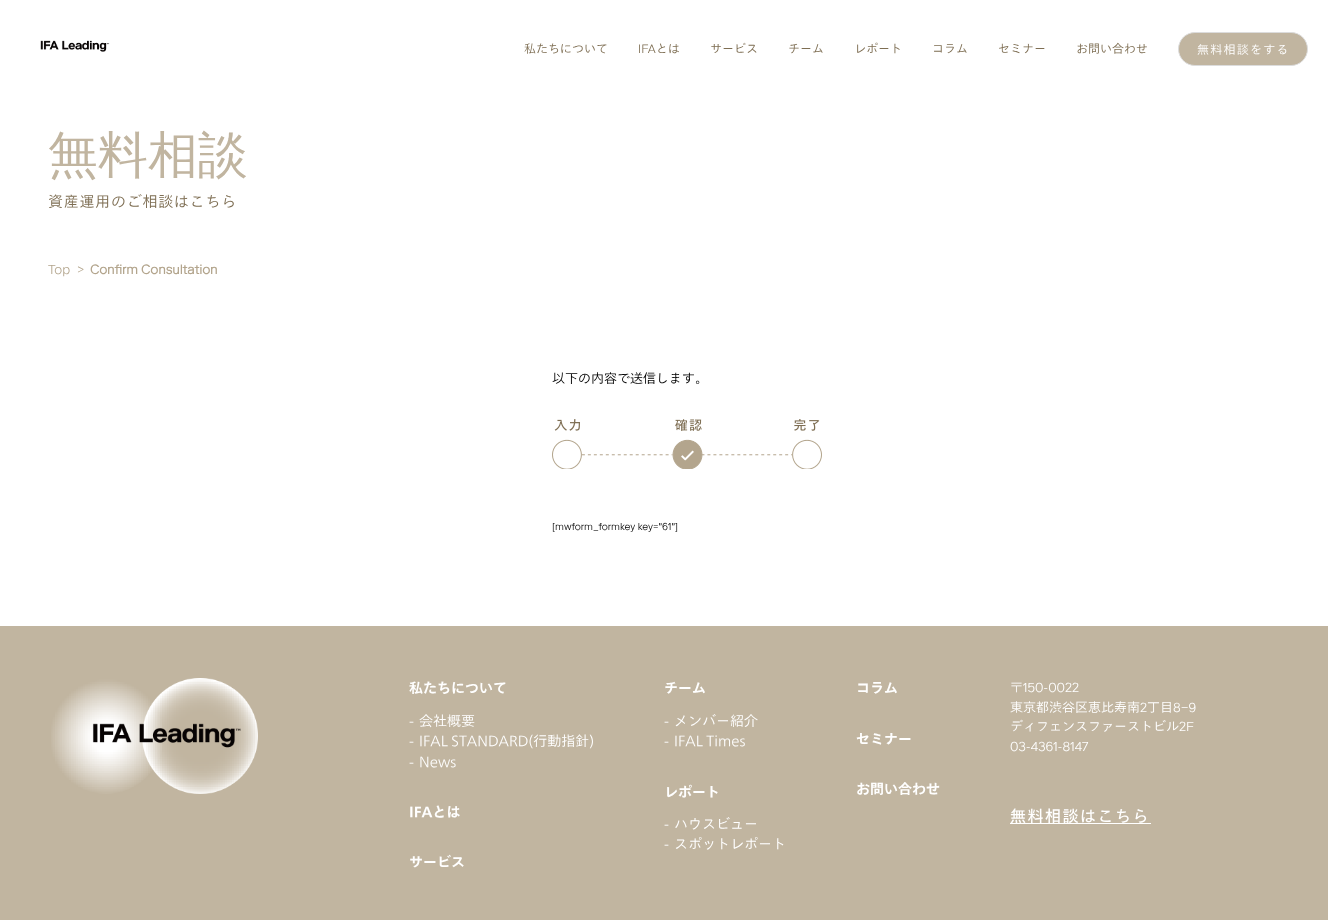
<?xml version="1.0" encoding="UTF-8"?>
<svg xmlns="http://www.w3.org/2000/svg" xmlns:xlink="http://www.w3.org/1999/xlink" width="1328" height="920">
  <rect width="100%" height="100%" fill="#ffffff" />
  <image x="40" y="40" width="70" height="12" xlink:href="image1.png" />
  <rect x="1178.5" y="32.5" width="129" height="33" rx="16.5" fill="#c1b5a0" stroke="#dcdcdc" />
  <image x="552" y="419" width="270" height="50" xlink:href="image2.png" />
  <rect y="626" width="1328" height="294" fill="#c1b5a0" />
  <image x="51" y="678" width="207" height="116" xlink:href="image3.png" />
  <rect x="1010" y="823" width="141" height="1" fill="#ffffff" />
  <text x="524" y="53" style="font-family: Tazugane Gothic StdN; font-size: 12px; font-weight: 300; fill: #7e6e53">私たちについて</text>
  <text x="638" y="53" style="font-family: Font; font-size: 12px; font-weight: 300; fill: #7e6e53">IFA</text>
  <text x="656" y="53" style="font-family: Tazugane Gothic StdN; font-size: 12px; font-weight: 300; fill: #7e6e53">とは</text>
  <text x="710" y="53" style="font-family: Tazugane Gothic StdN; font-size: 12px; font-weight: 300; fill: #7e6e53">サービス</text>
  <text x="788" y="53" style="font-family: Tazugane Gothic StdN; font-size: 12px; font-weight: 300; fill: #7e6e53">チーム</text>
  <text x="854" y="53" style="font-family: Tazugane Gothic StdN; font-size: 12px; font-weight: 300; fill: #7e6e53">レポート</text>
  <text x="932" y="53" style="font-family: Tazugane Gothic StdN; font-size: 12px; font-weight: 300; fill: #7e6e53">コラム</text>
  <text x="998" y="53" style="font-family: Tazugane Gothic StdN; font-size: 12px; font-weight: 300; fill: #7e6e53">セミナー</text>
  <text x="1076" y="53" style="font-family: Tazugane Gothic StdN; font-size: 12px; font-weight: 300; fill: #7e6e53">お問い合わせ</text>
  <text x="1197" y="54" style="font-family: Tazugane Gothic StdN; font-size: 12px; font-weight: 300; letter-spacing: 1.25px; fill: #ffffff">無料相談をする</text>
  <text x="48" y="172" style="font-family: WenQuanYi Zen Hei; font-size: 50px; font-weight: 500; fill: #c1b5a0">無料相談</text>
  <text x="48" y="207" style="font-family: Tazugane Gothic StdN; font-size: 15px; font-weight: 300; letter-spacing: 0.75px; fill: #7e6e53">資産運用のご相談はこちら</text>
  <text x="48" y="274" style="font-family: Font; font-size: 13px; font-weight: 300; fill: #b3a58d">Top</text>
  <text x="77" y="274" style="font-family: Font; font-size: 13px; font-weight: 300; fill: #b3a58d">&gt;</text>
  <text x="90" y="274" style="font-family: Font; font-size: 13px; font-weight: bold; fill: #b3a58d">Confirm Consultation</text>
  <text x="552" y="383" style="font-family: Tazugane Gothic StdN; font-size: 13px; font-weight: 300; fill: #000000">以下の内容で送信します。</text>
  <text x="552" y="530" style="font-family: Font; font-size: 10px; font-weight: 300; fill: #000000">[mwform_formkey key="61"]</text>
  <text x="409" y="693" style="font-family: Tazugane Gothic StdN; font-size: 14px; font-weight: bold; fill: #ffffff">私たちについて</text>
  <text x="409" y="726" style="font-family: Tazugane Gothic StdN; font-size: 14px; font-weight: 300; fill: #ffffff">-</text>
  <text x="419" y="726" style="font-family: Tazugane Gothic StdN; font-size: 14px; font-weight: 300; fill: #ffffff">会社概要</text>
  <text x="409" y="746" style="font-family: Tazugane Gothic StdN; font-size: 14px; font-weight: 300; fill: #ffffff">-</text>
  <text x="419" y="746" style="font-family: Tazugane Gothic StdN; font-size: 14px; font-weight: 300; fill: #ffffff">IFAL STANDARD(行動指針)</text>
  <text x="409" y="767" style="font-family: Tazugane Gothic StdN; font-size: 14px; font-weight: 300; fill: #ffffff">-</text>
  <text x="419" y="767" style="font-family: Tazugane Gothic StdN; font-size: 14px; font-weight: 300; fill: #ffffff">News</text>
  <text x="664" y="693" style="font-family: Tazugane Gothic StdN; font-size: 14px; font-weight: bold; fill: #ffffff">チーム</text>
  <text x="664" y="726" style="font-family: Tazugane Gothic StdN; font-size: 14px; font-weight: 300; fill: #ffffff">-</text>
  <text x="674" y="726" style="font-family: Tazugane Gothic StdN; font-size: 14px; font-weight: 300; fill: #ffffff">メンバー紹介</text>
  <text x="664" y="746" style="font-family: Tazugane Gothic StdN; font-size: 14px; font-weight: 300; fill: #ffffff">-</text>
  <text x="674" y="746" style="font-family: Tazugane Gothic StdN; font-size: 14px; font-weight: 300; fill: #ffffff">IFAL Times</text>
  <text x="856" y="693" style="font-family: Tazugane Gothic StdN; font-size: 14px; font-weight: bold; fill: #ffffff">コラム</text>
  <text x="856" y="744" style="font-family: Tazugane Gothic StdN; font-size: 14px; font-weight: bold; fill: #ffffff">セミナー</text>
  <text x="409" y="817" style="font-family: Tazugane Gothic StdN; font-size: 14px; font-weight: bold; fill: #ffffff">IFAとは</text>
  <text x="664" y="797" style="font-family: Tazugane Gothic StdN; font-size: 14px; font-weight: bold; fill: #ffffff">レポート</text>
  <text x="664" y="829" style="font-family: Tazugane Gothic StdN; font-size: 14px; font-weight: 300; fill: #ffffff">-</text>
  <text x="674" y="829" style="font-family: Tazugane Gothic StdN; font-size: 14px; font-weight: 300; fill: #ffffff">ハウスビュー</text>
  <text x="664" y="849" style="font-family: Tazugane Gothic StdN; font-size: 14px; font-weight: 300; fill: #ffffff">-</text>
  <text x="674" y="849" style="font-family: Tazugane Gothic StdN; font-size: 14px; font-weight: 300; fill: #ffffff">スポットレポート</text>
  <text x="856" y="794" style="font-family: Tazugane Gothic StdN; font-size: 14px; font-weight: bold; fill: #ffffff">お問い合わせ</text>
  <text x="409" y="867" style="font-family: Tazugane Gothic StdN; font-size: 14px; font-weight: bold; fill: #ffffff">サービス</text>
  <text x="1010" y="692" style="font-family: Tazugane Gothic StdN; font-size: 13px; font-weight: 300; fill: #ffffff">〒</text>
  <text x="1023" y="692" style="font-family: Font; font-size: 13px; font-weight: 300; fill: #ffffff">150-0022</text>
  <text x="1010" y="712" style="font-family: Tazugane Gothic StdN; font-size: 13px; font-weight: 300; fill: #ffffff">東京都渋谷区恵比寿南</text>
  <text x="1140" y="712" style="font-family: Font; font-size: 13px; font-weight: 300; fill: #ffffff">2</text>
  <text x="1147" y="712" style="font-family: Tazugane Gothic StdN; font-size: 13px; font-weight: 300; fill: #ffffff">丁目</text>
  <text x="1173" y="712" style="font-family: Font; font-size: 13px; font-weight: 300; fill: #ffffff">8−9</text>
  <text x="1010" y="731" style="font-family: Tazugane Gothic StdN; font-size: 13px; font-weight: 300; fill: #ffffff">ディフェンスファーストビル</text>
  <text x="1179" y="731" style="font-family: Font; font-size: 13px; font-weight: 300; fill: #ffffff">2F</text>
  <text x="1010" y="751" style="font-family: Font; font-size: 13px; font-weight: 300; fill: #ffffff">03-4361-8147</text>
  <text x="1010" y="822" style="font-family: Tazugane Gothic StdN; font-size: 16px; letter-spacing: 1.5px; fill: #ffffff">無料相談はこちら</text>
</svg>
